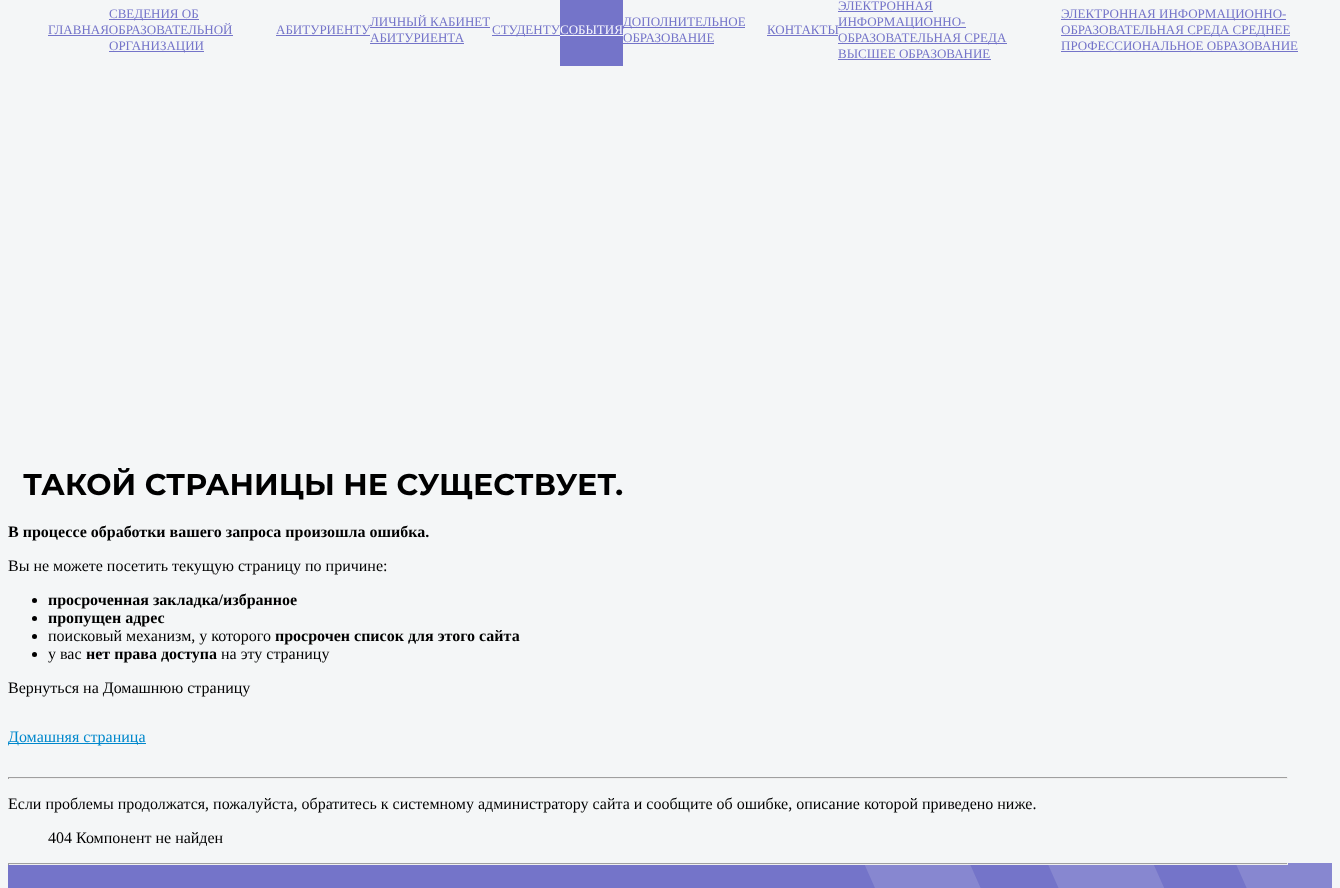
<?xml version="1.0" encoding="UTF-8"?>
<svg xmlns="http://www.w3.org/2000/svg" xmlns:xlink="http://www.w3.org/1999/xlink" width="1340" height="888">
  <rect width="100%" height="100%" fill="#f4f6f7" />
  <rect x="109" y="19" width="90" height="1" fill="#7474c9" />
  <rect x="109" y="51" width="95" height="1" fill="#7474c9" />
  <rect x="370" y="27" width="120" height="1" fill="#7474c9" />
  <rect x="370" y="43" width="94" height="1" fill="#7474c9" />
  <rect x="623" y="27" width="122" height="1" fill="#7474c9" />
  <rect x="623" y="43" width="91" height="1" fill="#7474c9" />
  <rect x="838" y="11" width="95" height="1" fill="#7474c9" />
  <rect x="838" y="27" width="128" height="1" fill="#7474c9" />
  <rect x="838" y="43" width="169" height="1" fill="#7474c9" />
  <rect x="838" y="59" width="153" height="1" fill="#7474c9" />
  <rect x="1061" y="19" width="225" height="1" fill="#7474c9" />
  <rect x="1061" y="35" width="229" height="1" fill="#7474c9" />
  <rect x="1061" y="51" width="237" height="1" fill="#7474c9" />
  <rect x="48" y="35" width="185" height="1" fill="#7474c9" />
  <rect x="276" y="35" width="94" height="1" fill="#7474c9" />
  <rect x="492" y="35" width="68" height="1" fill="#7474c9" />
  <rect x="560" width="63" height="66" fill="#7474c9" />
  <rect x="560" y="35" width="63" height="1" fill="#f8f8ff" />
  <rect x="767" y="35" width="71" height="1" fill="#7474c9" />
  <circle cx="34.5" cy="600.5" r="2.5" fill="#000000" />
  <circle cx="34.5" cy="618.5" r="2.5" fill="#000000" />
  <circle cx="34.5" cy="636.5" r="2.5" fill="#000000" />
  <circle cx="34.5" cy="654.5" r="2.5" fill="#000000" />
  <rect x="8" y="743" width="138" height="1" fill="#0088cc" />
  <rect x="8" y="777" width="1280" height="1" fill="#9f9f9f" />
  <rect x="1287" y="777" width="1" height="2" fill="#eeeeee" />
  <rect x="8" y="778" width="1280" height="1" fill="#eeeeee" />
  <rect x="8" y="777" width="1" height="2" fill="#9f9f9f" />
  <rect x="8" y="863" width="1324" height="25" fill="#7474c9" />
  <image x="865" y="863" width="467" height="25" xlink:href="image1.png" />
  <rect x="8" y="863" width="1280" height="1" fill="#9f9f9f" />
  <rect x="1287" y="863" width="1" height="2" fill="#eeeeee" />
  <rect x="8" y="864" width="1280" height="1" fill="#eeeeee" />
  <rect x="8" y="863" width="1" height="2" fill="#9f9f9f" />
  <text x="109" y="18" style="font-family: Liberation Serif; font-size: 13px; fill: #7474c9">СВЕДЕНИЯ ОБ</text>
  <text x="109" y="50" style="font-family: Liberation Serif; font-size: 13px; fill: #7474c9">ОРГАНИЗАЦИИ</text>
  <text x="370" y="26" style="font-family: Liberation Serif; font-size: 13px; fill: #7474c9">ЛИЧНЫЙ КАБИНЕТ</text>
  <text x="370" y="42" style="font-family: Liberation Serif; font-size: 13px; fill: #7474c9">АБИТУРИЕНТА</text>
  <text x="623" y="26" style="font-family: Liberation Serif; font-size: 13px; fill: #7474c9">ДОПОЛНИТЕЛЬНОЕ</text>
  <text x="623" y="42" style="font-family: Liberation Serif; font-size: 13px; fill: #7474c9">ОБРАЗОВАНИЕ</text>
  <text x="838" y="10" style="font-family: Liberation Serif; font-size: 13px; fill: #7474c9">ЭЛЕКТРОННАЯ</text>
  <text x="838" y="26" style="font-family: Liberation Serif; font-size: 13px; fill: #7474c9">ИНФОРМАЦИОННО-</text>
  <text x="838" y="42" style="font-family: Liberation Serif; font-size: 13px; fill: #7474c9">ОБРАЗОВАТЕЛЬНАЯ СРЕДА</text>
  <text x="838" y="58" style="font-family: Liberation Serif; font-size: 13px; fill: #7474c9">ВЫСШЕЕ ОБРАЗОВАНИЕ</text>
  <text x="1061" y="18" style="font-family: Liberation Serif; font-size: 13px; fill: #7474c9">ЭЛЕКТРОННАЯ ИНФОРМАЦИОННО-</text>
  <text x="1061" y="34" style="font-family: Liberation Serif; font-size: 13px; fill: #7474c9">ОБРАЗОВАТЕЛЬНАЯ СРЕДА СРЕДНЕЕ</text>
  <text x="1061" y="50" style="font-family: Liberation Serif; font-size: 13px; fill: #7474c9">ПРОФЕССИОНАЛЬНОЕ ОБРАЗОВАНИЕ</text>
  <text x="48" y="34" style="font-family: Liberation Serif; font-size: 13px; fill: #7474c9">ГЛАВНАЯОБРАЗОВАТЕЛЬНОЙ</text>
  <text x="276" y="34" style="font-family: Liberation Serif; font-size: 13px; fill: #7474c9">АБИТУРИЕНТУ</text>
  <text x="492" y="34" style="font-family: Liberation Serif; font-size: 13px; fill: #7474c9">СТУДЕНТУ</text>
  <text x="560" y="34" style="font-family: Liberation Serif; font-size: 13px; fill: #f8f8ff">СОБЫТИЯ</text>
  <text x="767" y="34" style="font-family: Liberation Serif; font-size: 13px; fill: #7474c9">КОНТАКТЫ</text>
  <text x="23" y="495" style="font-family: Montserrat; font-size: 30px; font-weight: bold; fill: #000000">ТАКОЙ СТРАНИЦЫ НЕ СУЩЕСТВУЕТ.</text>
  <text x="8" y="537" style="font-family: Liberation Serif; font-size: 16px; font-weight: bold; fill: #000000">В процессе обработки вашего запроса произошла ошибка.</text>
  <text x="8" y="571" style="font-family: Liberation Serif; font-size: 16px; fill: #000000">Вы не можете посетить текущую страницу по причине:</text>
  <text x="48" y="605" style="font-family: Liberation Serif; font-size: 16px; font-weight: bold; fill: #000000">просроченная закладка/избранное</text>
  <text x="48" y="623" style="font-family: Liberation Serif; font-size: 16px; font-weight: bold; fill: #000000">пропущен адрес</text>
  <text x="48" y="641" style="font-family: Liberation Serif; font-size: 16px; fill: #000000">поисковый механизм, у которого</text>
  <text x="275" y="641" style="font-family: Liberation Serif; font-size: 16px; font-weight: bold; fill: #000000">просрочен список для этого сайта</text>
  <text x="48" y="659" style="font-family: Liberation Serif; font-size: 16px; fill: #000000">у вас</text>
  <text x="86" y="659" style="font-family: Liberation Serif; font-size: 16px; font-weight: bold; fill: #000000">нет права доступа</text>
  <text x="221" y="659" style="font-family: Liberation Serif; font-size: 16px; fill: #000000">на эту страницу</text>
  <text x="8" y="693" style="font-family: Liberation Serif; font-size: 16px; fill: #000000">Вернуться на Домашнюю страницу</text>
  <text x="8" y="742" style="font-family: Liberation Serif; font-size: 16px; fill: #0088cc">Домашняя страница</text>
  <text x="8" y="809" style="font-family: Liberation Serif; font-size: 16px; fill: #000000">Если проблемы продолжатся, пожалуйста, обратитесь к системному администратору сайта и сообщите об ошибке, описание которой приведено ниже.</text>
  <text x="48" y="843" style="font-family: Liberation Serif; font-size: 16px; fill: #000000">404 Компонент не найден</text>
</svg>
